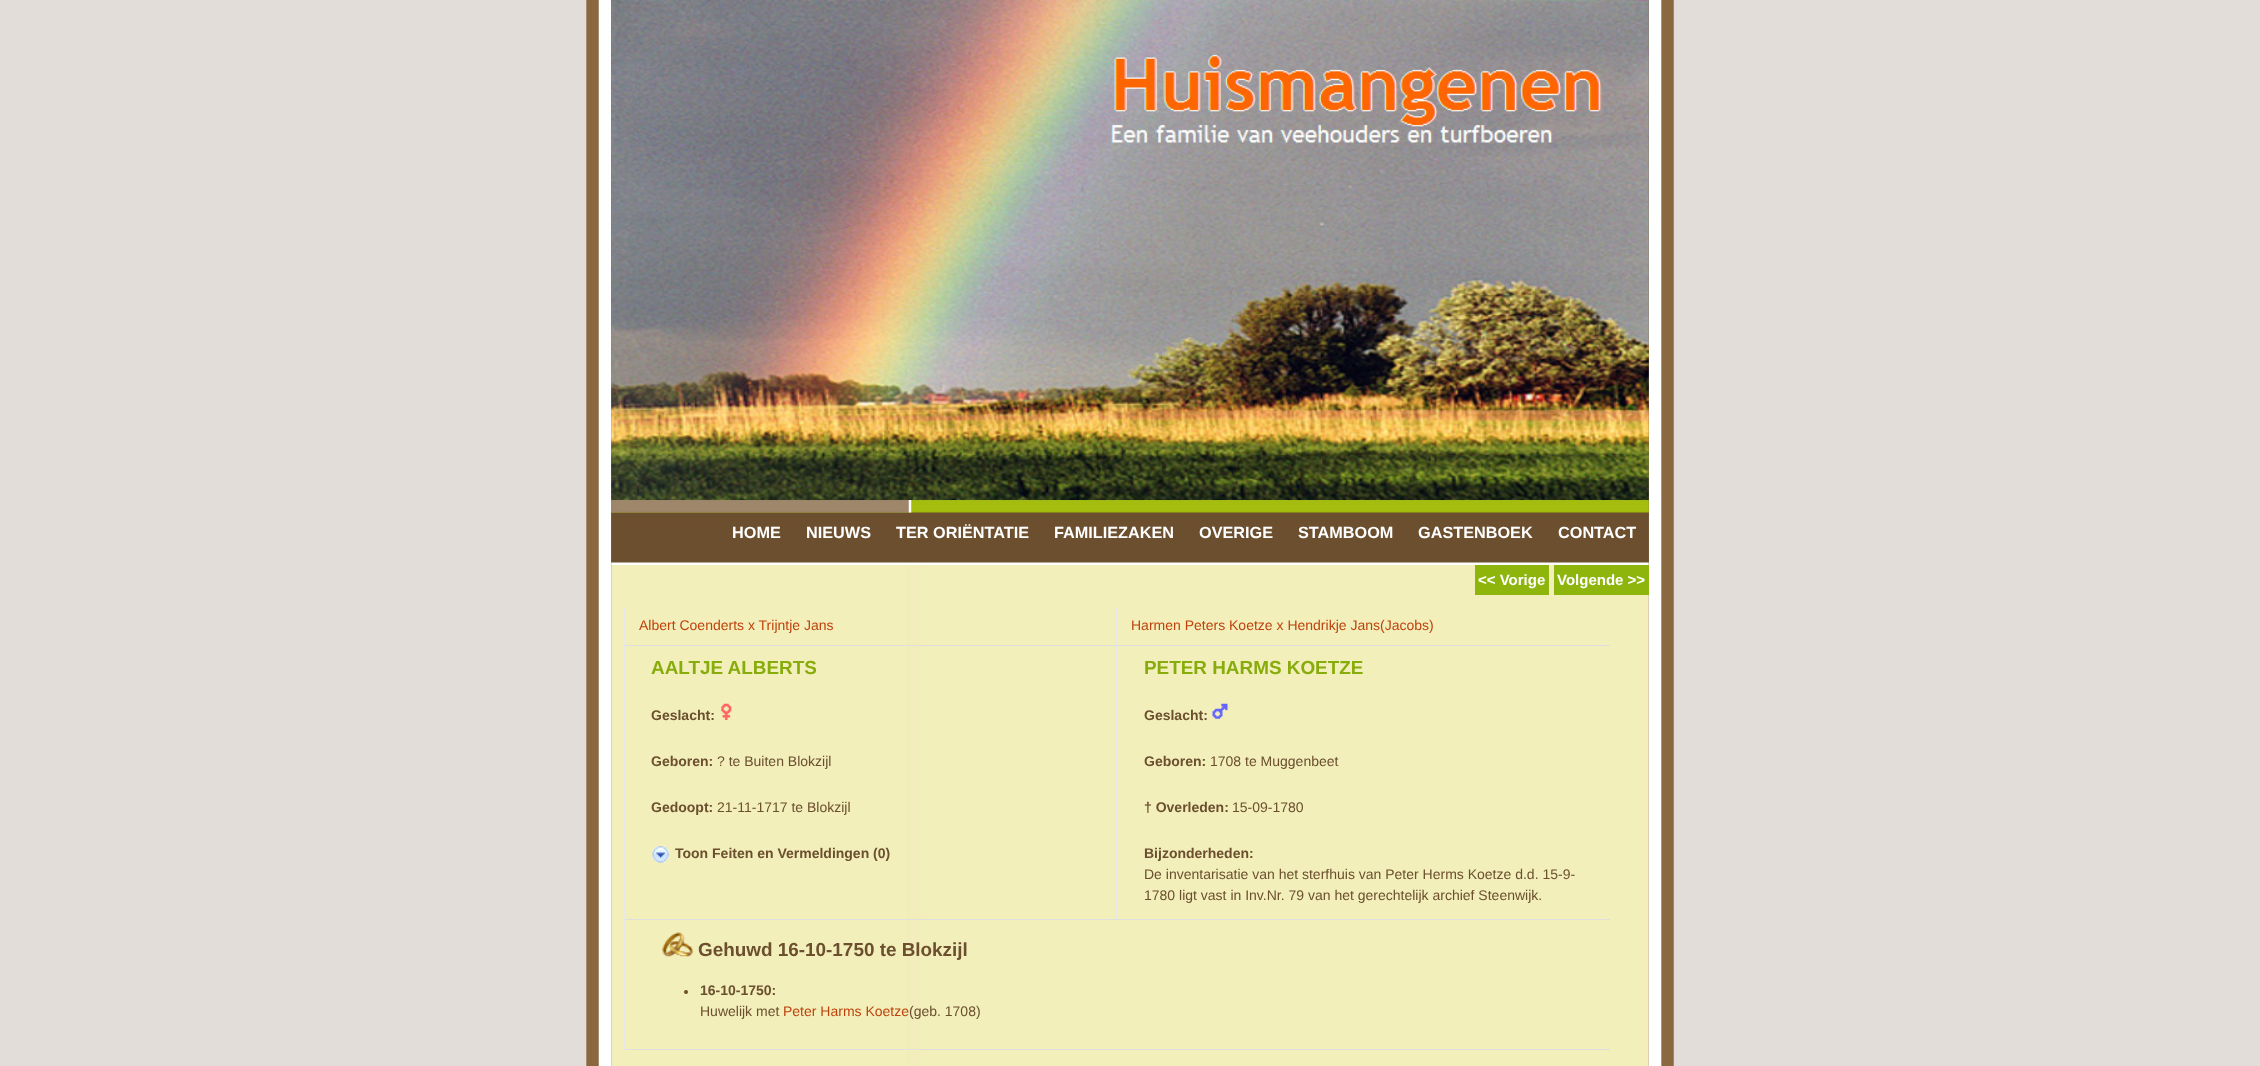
<?xml version="1.0" encoding="UTF-8"?>
<svg xmlns="http://www.w3.org/2000/svg" xmlns:xlink="http://www.w3.org/1999/xlink" width="2260" height="1066">
  <rect width="100%" height="100%" fill="#e2ddd9" />
  <image x="586" y="0" width="1088" height="1066" xlink:href="image1.png" />
  <image x="611" y="0" width="1038" height="500" xlink:href="image2.png" />
  <image x="611" y="500" width="1038" height="65" xlink:href="image3.png" />
  <image x="611" y="500" width="301" height="13" xlink:href="image4.png" />
  <image x="611" y="565" width="1038" height="501" xlink:href="image5.png" />
  <rect x="1475" y="565" width="74" height="30" fill="#8eb50c" />
  <rect x="1554" y="565" width="95" height="30" fill="#8eb50c" />
  <rect x="1116" y="919" width="494" height="1" fill="#dfdfdf" />
  <rect x="1116" y="645" width="1" height="275" fill="#e8e8e8" />
  <rect x="1116" y="645" width="494" height="1" fill="#dfdfdf" />
  <rect x="1116" y="608" width="1" height="38" fill="#e8e8e8" />
  <rect x="624" y="1049" width="986" height="1" fill="#dfdfdf" />
  <rect x="624" y="919" width="1" height="131" fill="#e8e8e8" />
  <rect x="624" y="919" width="494" height="1" fill="#dfdfdf" />
  <rect x="624" y="645" width="1" height="275" fill="#e8e8e8" />
  <rect x="624" y="645" width="494" height="1" fill="#dfdfdf" />
  <rect x="624" y="608" width="1" height="38" fill="#e8e8e8" />
  <image x="721" y="703" width="11" height="17" xlink:href="image6.png" />
  <image x="652" y="846" width="17" height="17" xlink:href="image7.png" />
  <image x="1212" y="703" width="16" height="16" xlink:href="image8.png" />
  <image x="662" y="932" width="31" height="25" xlink:href="image9.png" />
  <circle cx="686" cy="992" r="2" fill="#6b4f2e" />
  <text x="732" y="538" style="font-family: Liberation Sans; font-size: 16.25px; font-weight: bold; fill: #ffffff">HOME</text>
  <text x="806" y="538" style="font-family: Liberation Sans; font-size: 16.25px; font-weight: bold; fill: #ffffff">NIEUWS</text>
  <text x="896" y="538" style="font-family: Liberation Sans; font-size: 16.25px; font-weight: bold; fill: #ffffff">TER ORIËNTATIE</text>
  <text x="1054" y="538" style="font-family: Liberation Sans; font-size: 16.25px; font-weight: bold; fill: #ffffff">FAMILIEZAKEN</text>
  <text x="1199" y="538" style="font-family: Liberation Sans; font-size: 16.25px; font-weight: bold; fill: #ffffff">OVERIGE</text>
  <text x="1298" y="538" style="font-family: Liberation Sans; font-size: 16.25px; font-weight: bold; fill: #ffffff">STAMBOOM</text>
  <text x="1418" y="538" style="font-family: Liberation Sans; font-size: 16.25px; font-weight: bold; fill: #ffffff">GASTENBOEK</text>
  <text x="1558" y="538" style="font-family: Liberation Sans; font-size: 16.25px; font-weight: bold; fill: #ffffff">CONTACT</text>
  <text x="1478" y="585" style="font-family: Liberation Sans; font-size: 15px; font-weight: bold; fill: #ffffff">&lt;&lt; Vorige</text>
  <text x="1557" y="585" style="font-family: Liberation Sans; font-size: 15px; font-weight: bold; fill: #ffffff">Volgende &gt;&gt;</text>
  <text x="639" y="630" style="font-family: Liberation Sans; font-size: 14px; fill: #be420d">Albert Coenderts x Trijntje Jans</text>
  <text x="1131" y="630" style="font-family: Liberation Sans; font-size: 14px; fill: #be420d">Harmen Peters Koetze x Hendrikje Jans(Jacobs)</text>
  <text x="651" y="674" style="font-family: Liberation Sans; font-size: 18.9px; font-weight: bold; fill: #88ac0b">AALTJE ALBERTS</text>
  <text x="651" y="720" style="font-family: Liberation Sans; font-size: 14px; font-weight: bold; fill: #6b4f2e">Geslacht:</text>
  <text x="651" y="766" style="font-family: Liberation Sans; font-size: 14px; font-weight: bold; fill: #6b4f2e">Geboren:</text>
  <text x="717" y="766" style="font-family: Liberation Sans; font-size: 14px; fill: #6b4f2e">? te Buiten Blokzijl</text>
  <text x="651" y="812" style="font-family: Liberation Sans; font-size: 14px; font-weight: bold; fill: #6b4f2e">Gedoopt:</text>
  <text x="717" y="812" style="font-family: Liberation Sans; font-size: 14px; fill: #6b4f2e">21-11-1717 te Blokzijl</text>
  <text x="675" y="858" style="font-family: Liberation Sans; font-size: 14px; font-weight: bold; fill: #6b4f2e">Toon Feiten en Vermeldingen (0)</text>
  <text x="1144" y="674" style="font-family: Liberation Sans; font-size: 18.9px; font-weight: bold; fill: #88ac0b">PETER HARMS KOETZE</text>
  <text x="1144" y="720" style="font-family: Liberation Sans; font-size: 14px; font-weight: bold; fill: #6b4f2e">Geslacht:</text>
  <text x="1144" y="766" style="font-family: Liberation Sans; font-size: 14px; font-weight: bold; fill: #6b4f2e">Geboren:</text>
  <text x="1210" y="766" style="font-family: Liberation Sans; font-size: 14px; fill: #6b4f2e">1708 te Muggenbeet</text>
  <text x="1144" y="812" style="font-family: Liberation Sans; font-size: 14px; font-weight: bold; fill: #6b4f2e">† Overleden:</text>
  <text x="1232" y="812" style="font-family: Liberation Sans; font-size: 14px; fill: #6b4f2e">15-09-1780</text>
  <text x="1144" y="858" style="font-family: Liberation Sans; font-size: 14px; font-weight: bold; fill: #6b4f2e">Bijzonderheden:</text>
  <text x="1144" y="879" style="font-family: Liberation Sans; font-size: 14px; fill: #6b4f2e">De inventarisatie van het sterfhuis van Peter Herms Koetze d.d. 15-9-</text>
  <text x="1144" y="900" style="font-family: Liberation Sans; font-size: 14px; fill: #6b4f2e">1780 ligt vast in Inv.Nr. 79 van het gerechtelijk archief Steenwijk.</text>
  <text x="698" y="956" style="font-family: Liberation Sans; font-size: 18.9px; font-weight: bold; fill: #6b4f2e">Gehuwd 16-10-1750 te Blokzijl</text>
  <text x="700" y="995" style="font-family: Liberation Sans; font-size: 14px; font-weight: bold; fill: #6b4f2e">16-10-1750:</text>
  <text x="700" y="1016" style="font-family: Liberation Sans; font-size: 14px; fill: #6b4f2e">Huwelijk met</text>
  <text x="783" y="1016" style="font-family: Liberation Sans; font-size: 14px; fill: #be420d">Peter Harms Koetze</text>
  <text x="909" y="1016" style="font-family: Liberation Sans; font-size: 14px; fill: #6b4f2e">(geb. 1708)</text>
</svg>
